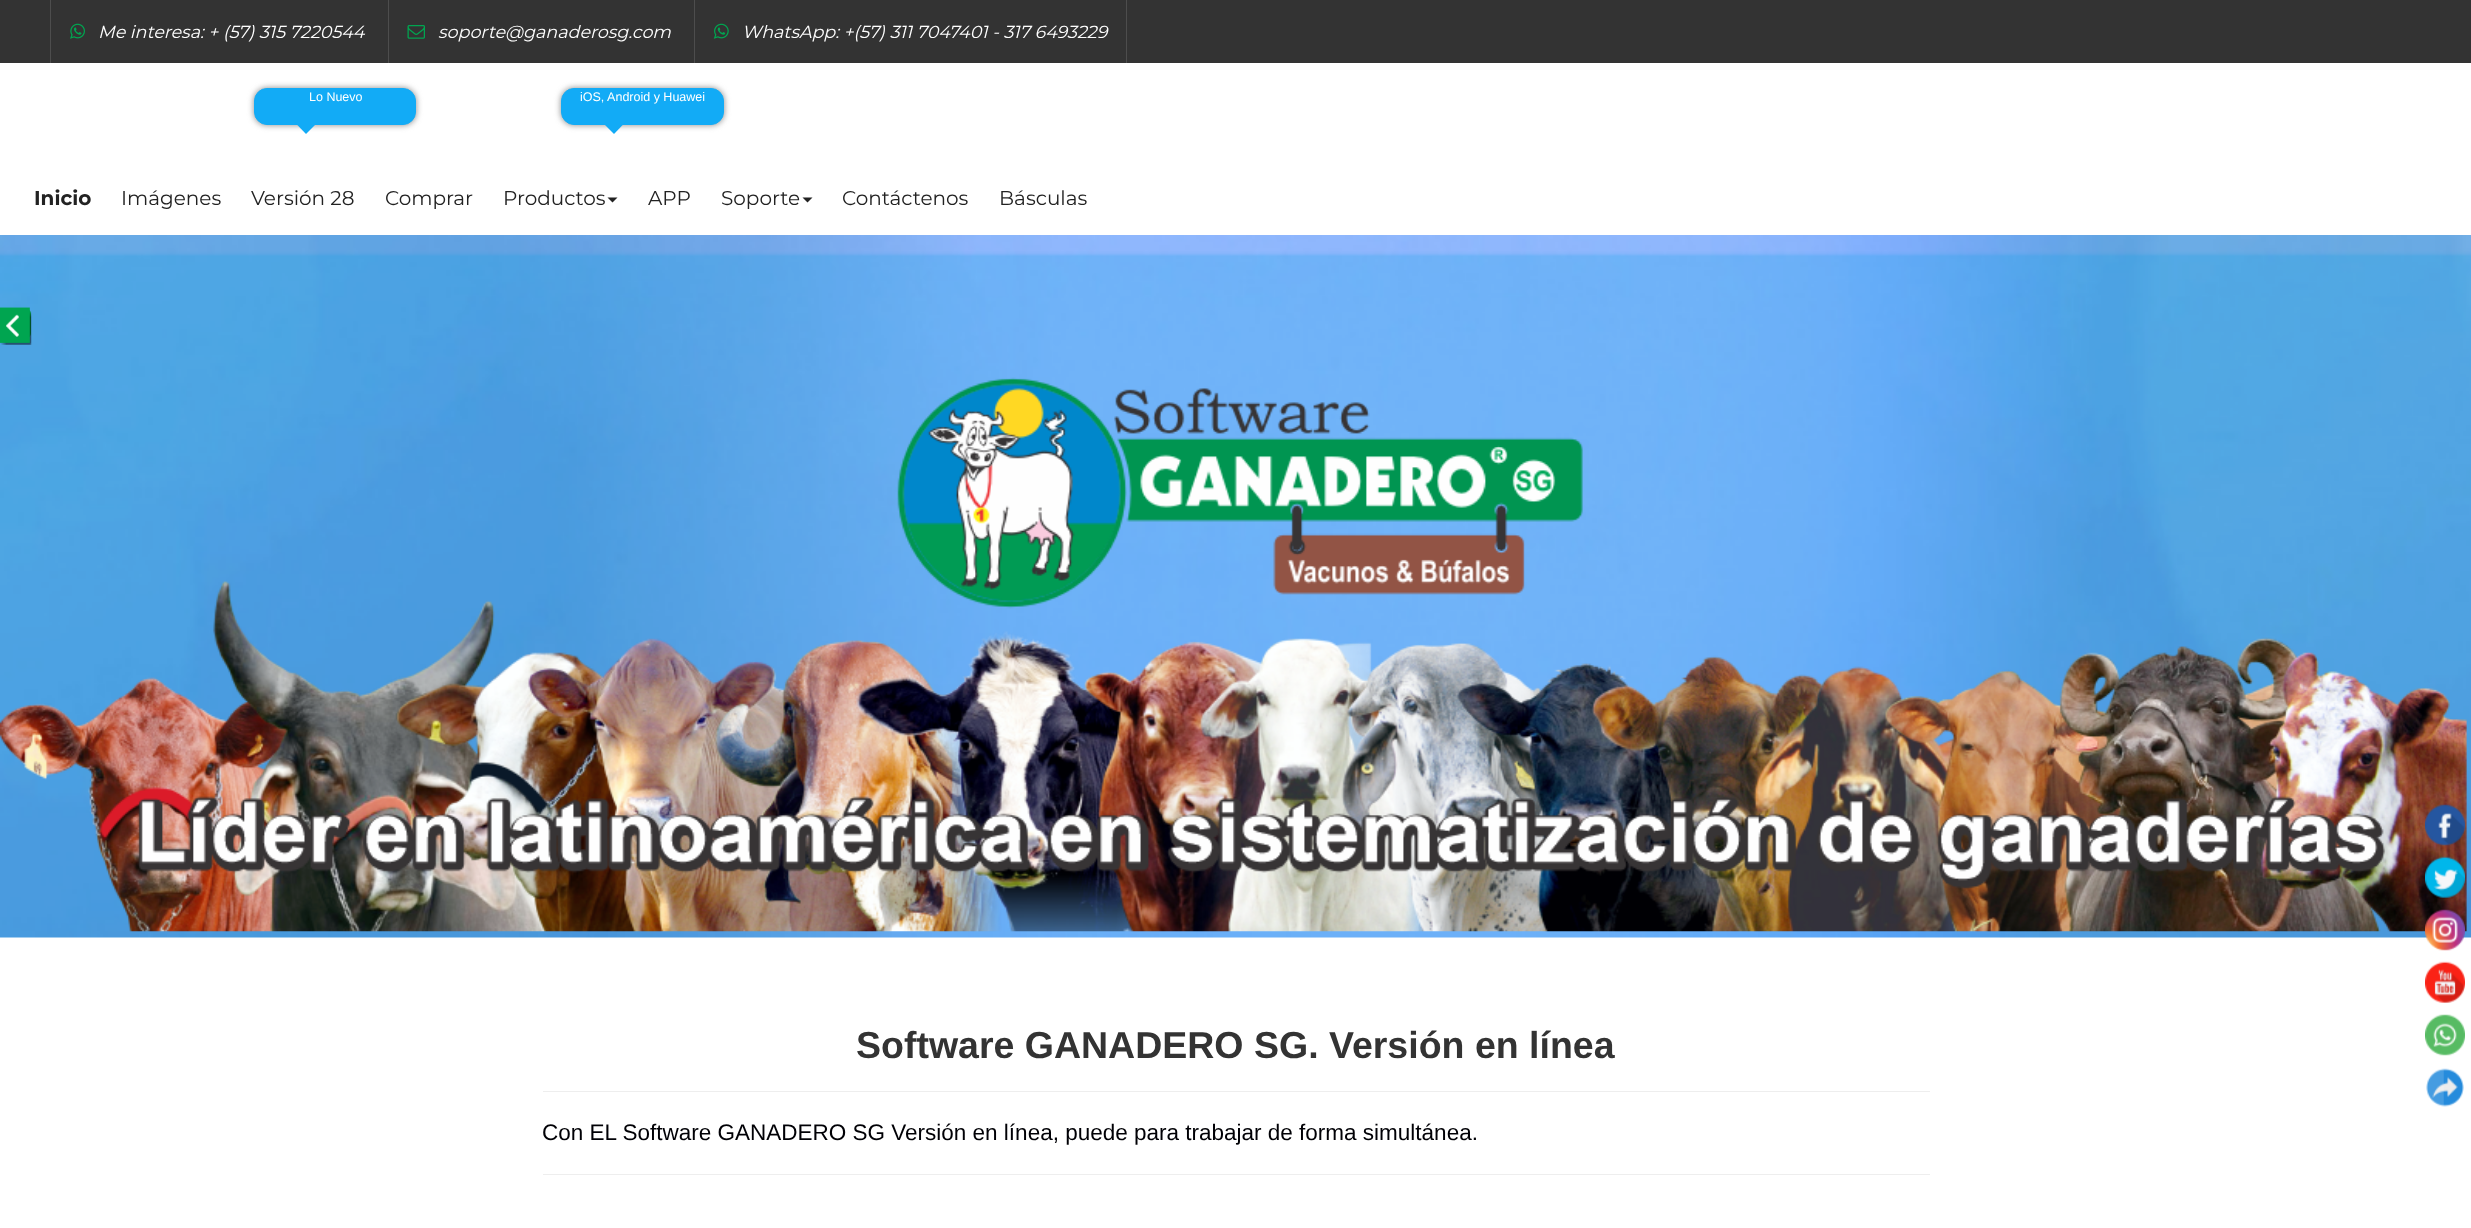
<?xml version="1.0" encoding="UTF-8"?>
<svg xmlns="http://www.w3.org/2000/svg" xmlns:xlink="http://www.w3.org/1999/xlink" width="2471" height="1228">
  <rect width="100%" height="100%" fill="#ffffff" />
  <image x="0" y="235" width="2471" height="703" xlink:href="image5.png" />
  <rect y="308" width="31" height="31" rx="6" fill="#00a550" />
  <image x="0" y="307" width="32" height="38" xlink:href="image1.png" />
  <rect width="2471" height="63" fill="#333333" />
  <rect x="50" width="1" height="63" fill="#4d4d4d" />
  <image x="70" y="23" width="15" height="16" xlink:href="image2.png" />
  <rect x="388" width="1" height="63" fill="#4d4d4d" />
  <image x="407" y="25" width="18" height="14" xlink:href="image3.png" />
  <rect x="1126" width="1" height="63" fill="#4d4d4d" />
  <rect x="694" width="1" height="63" fill="#4d4d4d" />
  <image x="713" y="23" width="16" height="16" xlink:href="image4.png" />
  <rect x="254" y="88" width="162" height="37" rx="13" fill="#888888" filter="blur(3px)" />
  <rect x="254.5" y="88.5" width="161" height="36" rx="12.5" fill="#12abf6" stroke="#12abf6" />
  <path d="M 292.5 120 h 27.5 l -14 14 z" fill="#12abf6" />
  <rect x="561" y="88" width="163" height="37" rx="13" fill="#888888" filter="blur(3px)" />
  <rect x="561.5" y="88.5" width="162" height="36" rx="12.5" fill="#12abf6" stroke="#12abf6" />
  <path d="M 600 120 h 27.5 l -13.5 14 z" fill="#12abf6" />
  <path d="M 607.5 197.5 h 10 l -5 5 z" fill="#222222" />
  <path d="M 802.5 197.5 h 10 l -5 5 z" fill="#222222" />
  <image x="0" y="377" width="2467" height="555" xlink:href="image6.png" />
  <rect x="543" y="1091" width="1387" height="1" fill="#eeeeee" />
  <rect x="543" y="1174" width="1387" height="1" fill="#eeeeee" />
  <image x="2425" y="804" width="40" height="42" xlink:href="image7.png" />
  <image x="2425" y="856" width="40" height="42" xlink:href="image8.png" />
  <image x="2425" y="909" width="40" height="42" xlink:href="image9.png" />
  <image x="2425" y="961" width="40" height="42" xlink:href="image10.png" />
  <image x="2425" y="1014" width="40" height="42" xlink:href="image11.png" />
  <image x="2426" y="1068" width="38" height="39" xlink:href="image12.png" />
  <text x="98" y="38" style="font-family: Montserrat; font-size: 17.5px; font-style: italic; fill: #ffffff">Me interesa: + (57) 315 7220544</text>
  <text x="438" y="38" style="font-family: Montserrat; font-size: 17.5px; font-style: italic; fill: #ffffff">soporte@ganaderosg.com</text>
  <text x="742" y="38" style="font-family: Montserrat; font-size: 17.5px; font-style: italic; fill: #ffffff">WhatsApp: +(57) 311 7047401 - 317 6493229</text>
  <text x="309" y="101" style="font-family: Liberation Sans; font-size: 12.5px; fill: #ffffff">Lo Nuevo</text>
  <text x="580" y="101" style="font-family: Liberation Sans; font-size: 12.5px; fill: #ffffff">iOS, Android y Huawei</text>
  <text x="34" y="205" style="font-family: Montserrat; font-size: 20px; font-weight: bold; fill: #222222">Inicio</text>
  <text x="121" y="205" style="font-family: Montserrat; font-size: 20px; fill: #222222">Imágenes</text>
  <text x="251" y="205" style="font-family: Montserrat; font-size: 20px; fill: #222222">Versión 28</text>
  <text x="385" y="205" style="font-family: Montserrat; font-size: 20px; fill: #222222">Comprar</text>
  <text x="503" y="205" style="font-family: Montserrat; font-size: 20px; fill: #222222">Productos</text>
  <text x="648" y="205" style="font-family: Montserrat; font-size: 20px; fill: #222222">APP</text>
  <text x="721" y="205" style="font-family: Montserrat; font-size: 20px; fill: #222222">Soporte</text>
  <text x="842" y="205" style="font-family: Montserrat; font-size: 20px; fill: #222222">Contáctenos</text>
  <text x="999" y="205" style="font-family: Montserrat; font-size: 20px; fill: #222222">Básculas</text>
  <text x="856" y="1058" style="font-family: Liberation Sans; font-size: 37.5px; font-weight: bold; fill: #333333">Software GANADERO SG. Versión en línea</text>
  <text x="542" y="1140" style="font-family: Liberation Sans; font-size: 22.5px; fill: #000005">Con EL Software GANADERO SG Versión en línea, puede para trabajar de forma simultánea.</text>
</svg>
